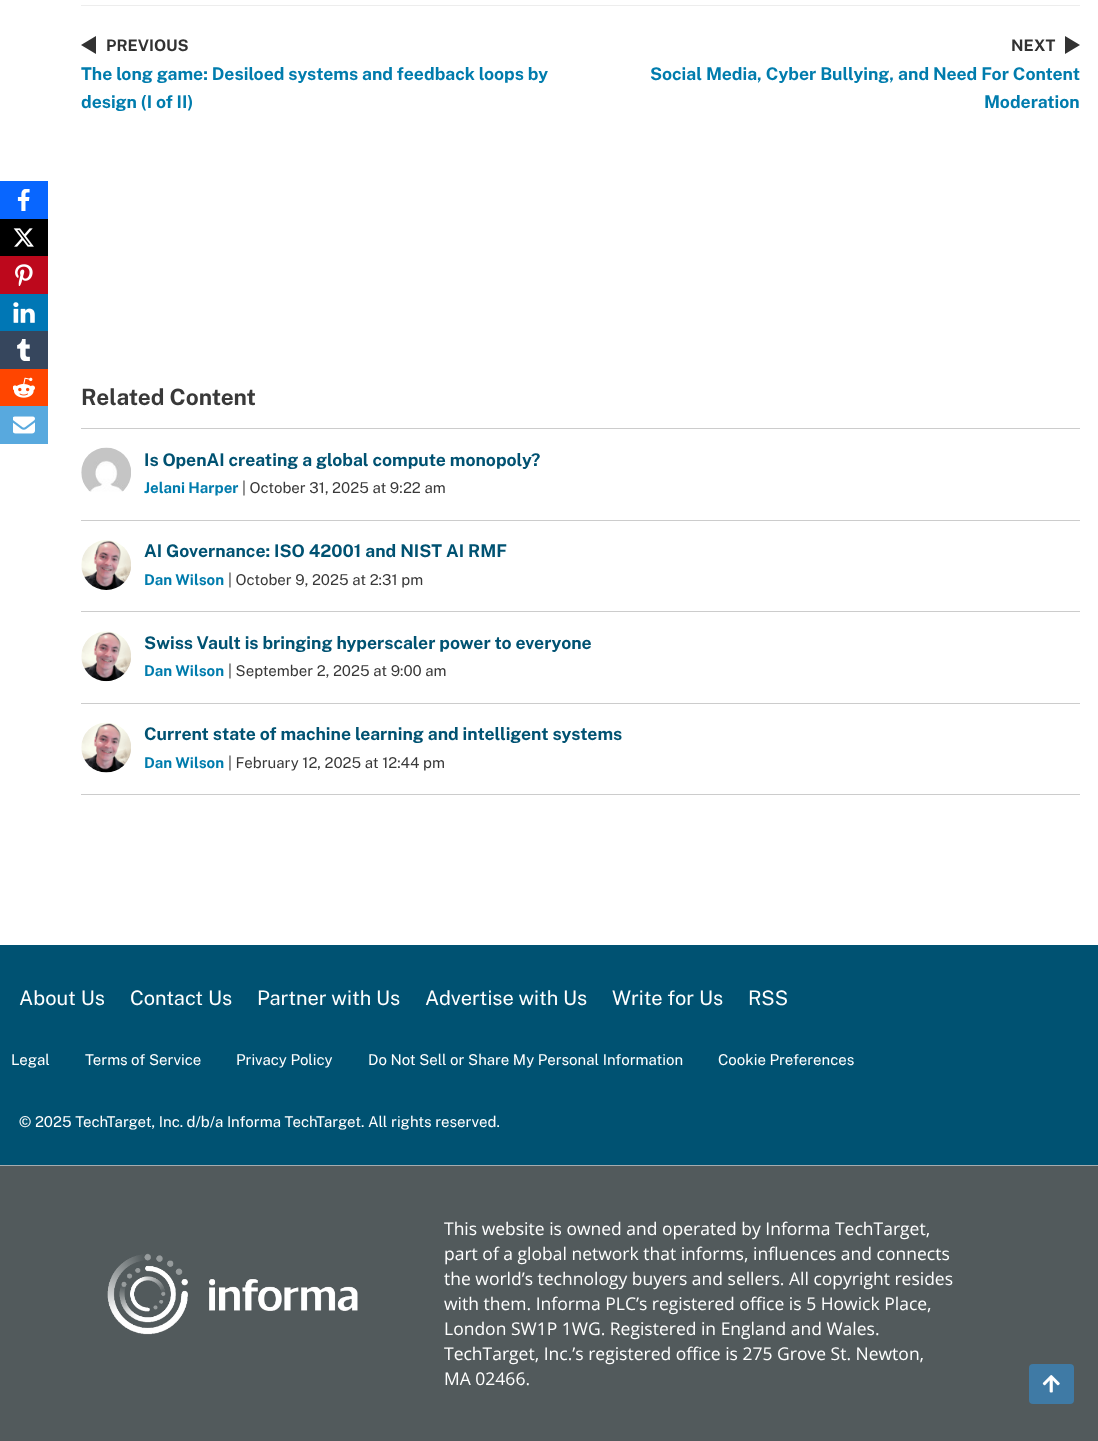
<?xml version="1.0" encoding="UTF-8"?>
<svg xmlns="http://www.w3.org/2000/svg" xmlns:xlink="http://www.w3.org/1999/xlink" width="1098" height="1441">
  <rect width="100%" height="100%" fill="#ffffff" />
  <rect x="81" y="5" width="999" height="1" fill="#ededed" />
  <path d="M 96 36 v 18 l -15 -9 z" fill="#323232" />
  <path d="M 1065 54 v -18 l 15 9 z" fill="#323232" />
  <rect x="81" y="428" width="999" height="1" fill="#cccccc" />
  <rect x="81" y="520" width="999" height="1" fill="#cccccc" />
  <image x="81" y="447" width="50" height="45" xlink:href="image1.png" />
  <rect x="81" y="611" width="999" height="1" fill="#cccccc" />
  <image x="81" y="540" width="50" height="50" xlink:href="image2.png" />
  <rect x="81" y="703" width="999" height="1" fill="#cccccc" />
  <image x="81" y="631" width="50" height="51" xlink:href="image3.png" />
  <rect x="81" y="794" width="999" height="1" fill="#cccccc" />
  <image x="81" y="722" width="50" height="51" xlink:href="image4.png" />
  <rect y="945" width="1098" height="220" fill="#005272" />
  <rect y="1166" width="1098" height="275" fill="#525a5c" />
  <rect x="1029" y="1364" width="45" height="40" rx="4" fill="#3f7aa5" />
  <image x="1042" y="1375" width="18" height="18" xlink:href="image5.png" />
  <rect y="181" width="48" height="38" fill="#0866ff" />
  <image x="17" y="189" width="13" height="22" xlink:href="image6.png" />
  <rect y="219" width="48" height="37" fill="#000000" />
  <image x="13" y="228" width="21" height="19" xlink:href="image7.png" />
  <rect y="256" width="48" height="38" fill="#bd081c" />
  <image x="15" y="264" width="18" height="22" xlink:href="image8.png" />
  <rect y="294" width="48" height="37" fill="#0077b5" />
  <image x="13" y="302" width="22" height="21" xlink:href="image9.png" />
  <rect y="331" width="48" height="38" fill="#36465d" />
  <image x="17" y="339" width="13" height="22" xlink:href="image10.png" />
  <rect y="369" width="48" height="37" fill="#ff4500" />
  <image x="13" y="377" width="22" height="21" xlink:href="image11.png" />
  <rect y="406" width="48" height="38" fill="#58a9de" />
  <image x="13" y="416" width="22" height="18" xlink:href="image12.png" />
  <rect y="1165" width="1098" height="1" fill="#a5acaf" />
  <image x="107" y="1253" width="251" height="82" xlink:href="image13.png" />
  <text x="106" y="51" style="font-family: Public Sans; font-size: 16px; font-weight: bold; fill: #323232">PREVIOUS</text>
  <text x="81" y="80" style="font-family: Public Sans; font-size: 17.5px; font-weight: bold; fill: #007cad">The long game: Desiloed systems and feedback loops by</text>
  <text x="81" y="108" style="font-family: Public Sans; font-size: 17.5px; font-weight: bold; fill: #007cad">design (I of II)</text>
  <text x="1011" y="51" style="font-family: Public Sans; font-size: 16px; font-weight: bold; fill: #323232">NEXT</text>
  <text x="650" y="80" style="font-family: Public Sans; font-size: 17.5px; font-weight: bold; fill: #007cad">Social Media, Cyber Bullying, and Need For Content</text>
  <text x="984" y="108" style="font-family: Public Sans; font-size: 17.5px; font-weight: bold; fill: #007cad">Moderation</text>
  <text x="81" y="405" style="font-family: Public Sans; font-size: 22.5px; font-weight: bold; fill: #393939">Related Content</text>
  <text x="144" y="466" style="font-family: Public Sans; font-size: 17.5px; font-weight: bold; fill: #005272">Is OpenAI creating a global compute monopoly?</text>
  <text x="144" y="493" style="font-family: Public Sans; font-size: 15px; font-weight: bold; fill: #007cad">Jelani Harper</text>
  <text x="242" y="493" style="font-family: Public Sans; font-size: 15px; fill: #393939">| October 31, 2025 at 9:22 am</text>
  <text x="144" y="557" style="font-family: Public Sans; font-size: 17.5px; font-weight: bold; fill: #005272">AI Governance: ISO 42001 and NIST AI RMF</text>
  <text x="144" y="585" style="font-family: Public Sans; font-size: 15px; font-weight: bold; fill: #007cad">Dan Wilson</text>
  <text x="228" y="585" style="font-family: Public Sans; font-size: 15px; fill: #393939">| October 9, 2025 at 2:31 pm</text>
  <text x="144" y="649" style="font-family: Public Sans; font-size: 17.5px; font-weight: bold; fill: #005272">Swiss Vault is bringing hyperscaler power to everyone</text>
  <text x="144" y="676" style="font-family: Public Sans; font-size: 15px; font-weight: bold; fill: #007cad">Dan Wilson</text>
  <text x="228" y="676" style="font-family: Public Sans; font-size: 15px; fill: #393939">| September 2, 2025 at 9:00 am</text>
  <text x="144" y="740" style="font-family: Public Sans; font-size: 17.5px; font-weight: bold; fill: #005272">Current state of machine learning and intelligent systems</text>
  <text x="144" y="768" style="font-family: Public Sans; font-size: 15px; font-weight: bold; fill: #007cad">Dan Wilson</text>
  <text x="228" y="768" style="font-family: Public Sans; font-size: 15px; fill: #393939">| February 12, 2025 at 12:44 pm</text>
  <text x="19" y="1005" style="font-family: Public Sans; font-size: 20px; fill: #ffffff">About Us</text>
  <text x="130" y="1005" style="font-family: Public Sans; font-size: 20px; fill: #ffffff">Contact Us</text>
  <text x="257" y="1005" style="font-family: Public Sans; font-size: 20px; fill: #ffffff">Partner with Us</text>
  <text x="425" y="1005" style="font-family: Public Sans; font-size: 20px; fill: #ffffff">Advertise with Us</text>
  <text x="612" y="1005" style="font-family: Public Sans; font-size: 20px; fill: #ffffff">Write for Us</text>
  <text x="748" y="1005" style="font-family: Public Sans; font-size: 20px; fill: #ffffff">RSS</text>
  <text x="11" y="1065" style="font-family: Public Sans; font-size: 15px; fill: #ffffff">Legal</text>
  <text x="85" y="1065" style="font-family: Public Sans; font-size: 15px; fill: #ffffff">Terms of Service</text>
  <text x="236" y="1065" style="font-family: Public Sans; font-size: 15px; fill: #ffffff">Privacy Policy</text>
  <text x="368" y="1065" style="font-family: Public Sans; font-size: 15px; fill: #ffffff">Do Not Sell or Share My Personal Information</text>
  <text x="718" y="1065" style="font-family: Public Sans; font-size: 15px; fill: #ffffff">Cookie Preferences</text>
  <text x="19" y="1127" style="font-family: Public Sans; font-size: 15px; fill: #ffffff">© 2025 TechTarget, Inc. d/b/a Informa TechTarget. All rights reserved.</text>
  <text x="444" y="1235" style="font-family: Open Sans; font-size: 17.5px; fill: #ffffff">This website is owned and operated by Informa TechTarget,</text>
  <text x="444" y="1260" style="font-family: Open Sans; font-size: 17.5px; fill: #ffffff">part of a global network that informs, influences and connects</text>
  <text x="444" y="1285" style="font-family: Open Sans; font-size: 17.5px; fill: #ffffff">the world’s technology buyers and sellers. All copyright resides</text>
  <text x="444" y="1310" style="font-family: Open Sans; font-size: 17.5px; fill: #ffffff">with them. Informa PLC’s registered office is 5 Howick Place,</text>
  <text x="444" y="1335" style="font-family: Open Sans; font-size: 17.5px; fill: #ffffff">London SW1P 1WG. Registered in England and Wales.</text>
  <text x="444" y="1360" style="font-family: Open Sans; font-size: 17.5px; fill: #ffffff">TechTarget, Inc.’s registered office is 275 Grove St. Newton,</text>
  <text x="444" y="1385" style="font-family: Open Sans; font-size: 17.5px; fill: #ffffff">MA 02466.</text>
</svg>
